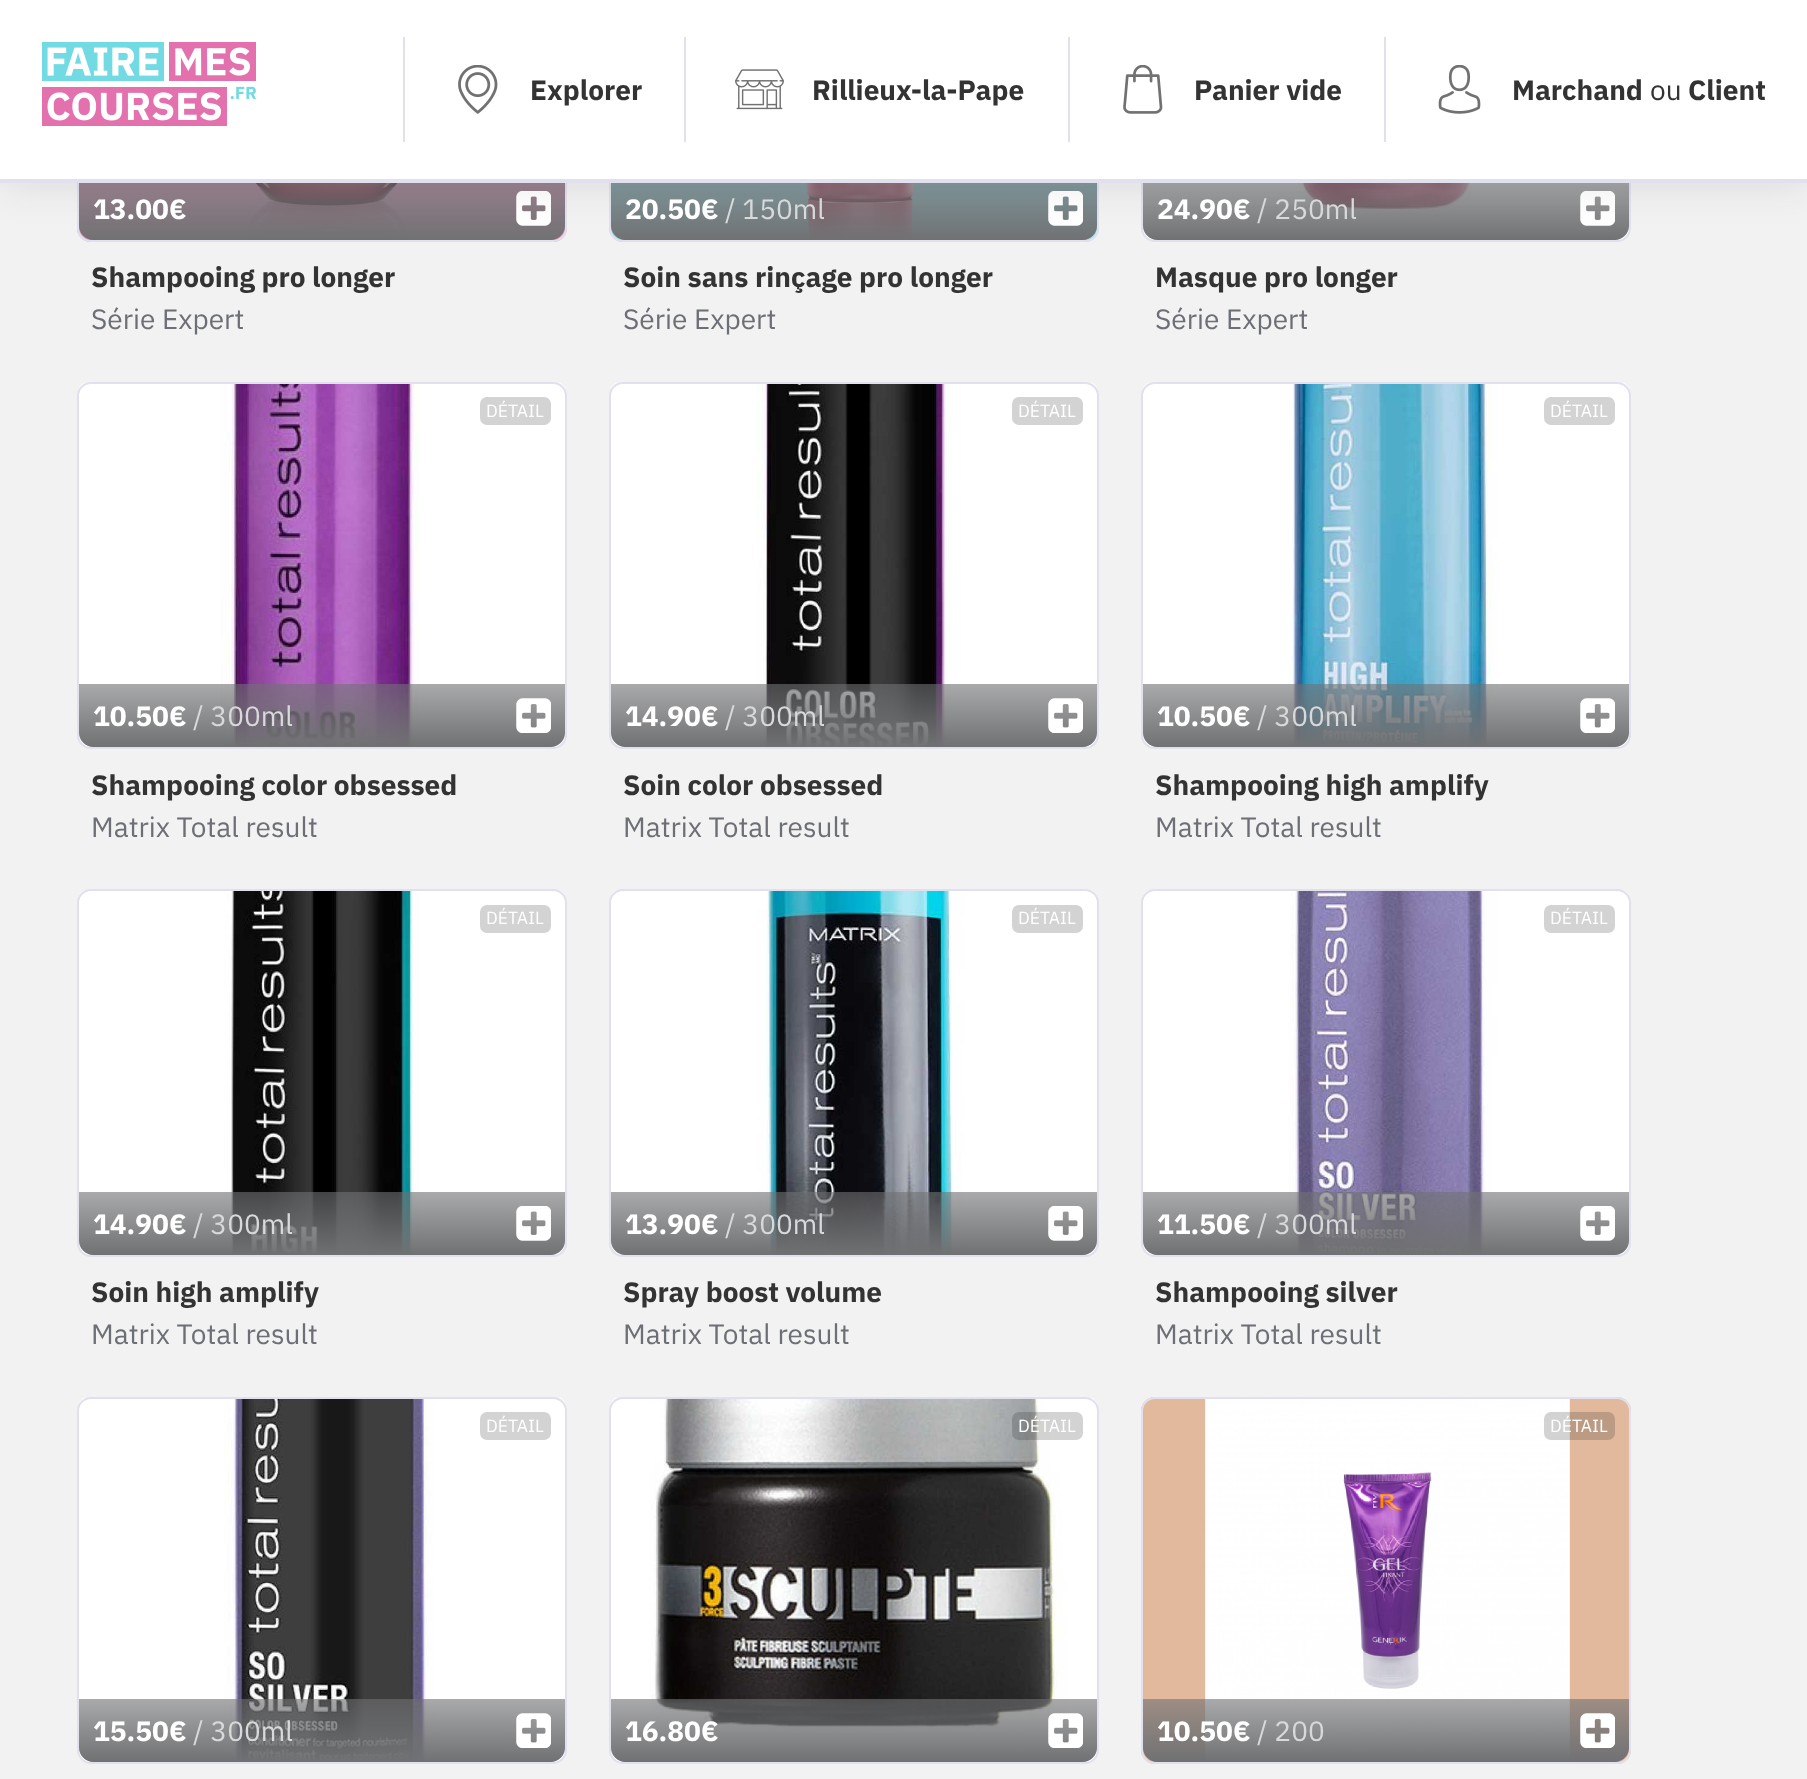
<?xml version="1.0" encoding="UTF-8"?>
<svg xmlns="http://www.w3.org/2000/svg" xmlns:xlink="http://www.w3.org/1999/xlink" width="1807" height="1779">
  <defs>
    <linearGradient id="g1" gradientUnits="userSpaceOnUse" x1="322" y1="177" x2="322" y2="240"><stop offset="0" stop-color="#707173" stop-opacity="0.6" /><stop offset="1" stop-color="#707173" /></linearGradient>
    <linearGradient id="g2" gradientUnits="userSpaceOnUse" x1="854" y1="177" x2="854" y2="240"><stop offset="0" stop-color="#707173" stop-opacity="0.6" /><stop offset="1" stop-color="#707173" /></linearGradient>
    <linearGradient id="g3" gradientUnits="userSpaceOnUse" x1="1386" y1="177" x2="1386" y2="240"><stop offset="0" stop-color="#707173" stop-opacity="0.6" /><stop offset="1" stop-color="#707173" /></linearGradient>
    <linearGradient id="g4" gradientUnits="userSpaceOnUse" x1="322" y1="684" x2="322" y2="747"><stop offset="0" stop-color="#707173" stop-opacity="0.6" /><stop offset="1" stop-color="#707173" /></linearGradient>
    <linearGradient id="g5" gradientUnits="userSpaceOnUse" x1="854" y1="684" x2="854" y2="747"><stop offset="0" stop-color="#707173" stop-opacity="0.6" /><stop offset="1" stop-color="#707173" /></linearGradient>
    <linearGradient id="g6" gradientUnits="userSpaceOnUse" x1="1386" y1="684" x2="1386" y2="747"><stop offset="0" stop-color="#707173" stop-opacity="0.6" /><stop offset="1" stop-color="#707173" /></linearGradient>
    <linearGradient id="g7" gradientUnits="userSpaceOnUse" x1="322" y1="1192" x2="322" y2="1255"><stop offset="0" stop-color="#707173" stop-opacity="0.6" /><stop offset="1" stop-color="#707173" /></linearGradient>
    <linearGradient id="g8" gradientUnits="userSpaceOnUse" x1="854" y1="1192" x2="854" y2="1255"><stop offset="0" stop-color="#707173" stop-opacity="0.6" /><stop offset="1" stop-color="#707173" /></linearGradient>
    <linearGradient id="g9" gradientUnits="userSpaceOnUse" x1="1386" y1="1192" x2="1386" y2="1255"><stop offset="0" stop-color="#707173" stop-opacity="0.6" /><stop offset="1" stop-color="#707173" /></linearGradient>
    <linearGradient id="g10" gradientUnits="userSpaceOnUse" x1="322" y1="1699" x2="322" y2="1762"><stop offset="0" stop-color="#707173" stop-opacity="0.6" /><stop offset="1" stop-color="#707173" /></linearGradient>
    <linearGradient id="g11" gradientUnits="userSpaceOnUse" x1="854" y1="1699" x2="854" y2="1762"><stop offset="0" stop-color="#707173" stop-opacity="0.6" /><stop offset="1" stop-color="#707173" /></linearGradient>
    <linearGradient id="g12" gradientUnits="userSpaceOnUse" x1="1386" y1="1699" x2="1386" y2="1762"><stop offset="0" stop-color="#707173" stop-opacity="0.6" /><stop offset="1" stop-color="#707173" /></linearGradient>
  </defs>
  <rect width="100%" height="100%" fill="#f2f2f2" />
  <rect x="77" y="-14" width="490" height="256" rx="14" fill="#e39ebf" />
  <image x="246" y="183" width="161" height="56" xlink:href="image6.png" />
  <rect x="78" y="-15" width="488" height="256" rx="13" fill="none" stroke="#e0e0ee" stroke-width="2" />
  <path d="M 79 177 h 486 v 49 c 0 7.5 -6.5 14 -14 14 h -458 c -7.5 0 -14 -6.5 -14 -14 z" fill="url(#g1)" />
  <image x="516" y="191" width="35" height="35" xlink:href="image7.png" />
  <rect x="609" y="-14" width="490" height="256" rx="14" fill="#9edbe3" />
  <image x="806" y="183" width="108" height="56" xlink:href="image8.png" />
  <rect x="610" y="-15" width="488" height="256" rx="13" fill="none" stroke="#e0e0ee" stroke-width="2" />
  <path d="M 611 177 h 486 v 49 c 0 7.5 -6.5 14 -14 14 h -458 c -7.5 0 -14 -6.5 -14 -14 z" fill="url(#g2)" />
  <image x="1048" y="191" width="35" height="35" xlink:href="image9.png" />
  <image x="1142" y="183" width="488" height="57" xlink:href="image10.png" />
  <rect x="1142" y="-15" width="488" height="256" rx="13" fill="none" stroke="#e0e0ee" stroke-width="2" />
  <path d="M 1143 177 h 486 v 49 c 0 7.5 -6.5 14 -14 14 h -458 c -7.5 0 -14 -6.5 -14 -14 z" fill="url(#g3)" />
  <image x="1580" y="191" width="35" height="35" xlink:href="image11.png" />
  <rect width="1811" height="186" fill="#212121" fill-opacity="0.1" filter="blur(21px)" />
  <rect width="1807" height="179" fill="#ffffff" />
  <rect y="179" width="1807" height="4" fill="#e0e0ee" />
  <image x="42" y="42" width="214" height="84" xlink:href="image1.png" />
  <rect x="403" y="37" width="2" height="105" fill="#e0e0ee" />
  <image x="458" y="65" width="40" height="49" xlink:href="image2.png" />
  <rect x="684" y="37" width="2" height="105" fill="#e0e0ee" />
  <image x="735" y="69" width="49" height="41" xlink:href="image3.png" />
  <rect x="1068" y="37" width="2" height="105" fill="#e0e0ee" />
  <image x="1123" y="65" width="40" height="49" xlink:href="image4.png" />
  <rect x="1384" y="37" width="2" height="105" fill="#e0e0ee" />
  <image x="1438" y="65" width="43" height="49" xlink:href="image5.png" />
  <image x="78" y="382" width="488" height="367" xlink:href="image12.png" />
  <rect x="78" y="383" width="488" height="365" rx="13" fill="none" stroke="#e0e0ee" stroke-width="2" />
  <rect x="480" y="397" width="71" height="28" rx="7" fill="#d3d3d3" />
  <path d="M 79 684 h 486 v 49 c 0 7.5 -6.5 14 -14 14 h -458 c -7.5 0 -14 -6.5 -14 -14 z" fill="url(#g4)" />
  <image x="516" y="698" width="35" height="35" xlink:href="image13.png" />
  <image x="610" y="382" width="488" height="367" xlink:href="image14.png" />
  <rect x="610" y="383" width="488" height="365" rx="13" fill="none" stroke="#e0e0ee" stroke-width="2" />
  <rect x="1012" y="397" width="71" height="28" rx="7" fill="#d3d3d3" />
  <path d="M 611 684 h 486 v 49 c 0 7.5 -6.5 14 -14 14 h -458 c -7.5 0 -14 -6.5 -14 -14 z" fill="url(#g5)" />
  <image x="1048" y="698" width="35" height="35" xlink:href="image13.png" />
  <image x="1142" y="382" width="488" height="367" xlink:href="image15.png" />
  <rect x="1142" y="383" width="488" height="365" rx="13" fill="none" stroke="#e0e0ee" stroke-width="2" />
  <rect x="1544" y="397" width="71" height="28" rx="7" fill="#d3d3d3" />
  <path d="M 1143 684 h 486 v 49 c 0 7.5 -6.5 14 -14 14 h -458 c -7.5 0 -14 -6.5 -14 -14 z" fill="url(#g6)" />
  <image x="1580" y="698" width="35" height="35" xlink:href="image13.png" />
  <image x="78" y="890" width="488" height="365" xlink:href="image16.png" />
  <rect x="78" y="890" width="488" height="366" rx="13" fill="none" stroke="#e0e0ee" stroke-width="2" />
  <rect x="480" y="905" width="71" height="28" rx="7" fill="#d3d3d3" />
  <path d="M 79 1192 h 486 v 49 c 0 7.5 -6.5 14 -14 14 h -458 c -7.5 0 -14 -6.5 -14 -14 z" fill="url(#g7)" />
  <image x="516" y="1206" width="35" height="35" xlink:href="image11.png" />
  <image x="610" y="890" width="488" height="365" xlink:href="image17.png" />
  <rect x="610" y="890" width="488" height="366" rx="13" fill="none" stroke="#e0e0ee" stroke-width="2" />
  <rect x="1012" y="905" width="71" height="28" rx="7" fill="#d3d3d3" />
  <path d="M 611 1192 h 486 v 49 c 0 7.5 -6.5 14 -14 14 h -458 c -7.5 0 -14 -6.5 -14 -14 z" fill="url(#g8)" />
  <image x="1048" y="1206" width="35" height="35" xlink:href="image11.png" />
  <image x="1142" y="890" width="488" height="365" xlink:href="image18.png" />
  <rect x="1142" y="890" width="488" height="366" rx="13" fill="none" stroke="#e0e0ee" stroke-width="2" />
  <rect x="1544" y="905" width="71" height="28" rx="7" fill="#d3d3d3" />
  <path d="M 1143 1192 h 486 v 49 c 0 7.5 -6.5 14 -14 14 h -458 c -7.5 0 -14 -6.5 -14 -14 z" fill="url(#g9)" />
  <image x="1580" y="1206" width="35" height="35" xlink:href="image11.png" />
  <image x="78" y="1397" width="488" height="367" xlink:href="image19.png" />
  <rect x="78" y="1398" width="488" height="365" rx="13" fill="none" stroke="#e0e0ee" stroke-width="2" />
  <rect x="480" y="1412" width="71" height="28" rx="7" fill="#d3d3d3" />
  <path d="M 79 1699 h 486 v 49 c 0 7.5 -6.5 14 -14 14 h -458 c -7.5 0 -14 -6.5 -14 -14 z" fill="url(#g10)" />
  <image x="516" y="1713" width="35" height="35" xlink:href="image13.png" />
  <image x="610" y="1397" width="488" height="367" xlink:href="image20.png" />
  <rect x="610" y="1398" width="488" height="365" rx="13" fill="none" stroke="#e0e0ee" stroke-width="2" />
  <rect x="1012" y="1412" width="71" height="28" rx="7" fill="#212121" fill-opacity="0.2" />
  <path d="M 611 1699 h 486 v 49 c 0 7.5 -6.5 14 -14 14 h -458 c -7.5 0 -14 -6.5 -14 -14 z" fill="url(#g11)" />
  <image x="1048" y="1713" width="35" height="35" xlink:href="image21.png" />
  <rect x="1141" y="1397" width="490" height="367" rx="14" fill="#e3b99e" />
  <image x="1205" y="1399" width="365" height="362" xlink:href="image22.png" />
  <rect x="1142" y="1398" width="488" height="365" rx="13" fill="none" stroke="#e0e0ee" stroke-width="2" />
  <rect x="1544" y="1412" width="71" height="28" rx="7" fill="#212121" fill-opacity="0.2" />
  <path d="M 1143 1699 h 486 v 49 c 0 7.5 -6.5 14 -14 14 h -458 c -7.5 0 -14 -6.5 -14 -14 z" fill="url(#g12)" />
  <image x="1580" y="1713" width="35" height="35" xlink:href="image23.png" />
  <text x="530" y="100" style="font-family: IBM Plex Sans; font-size: 28px; font-weight: bold; fill: #333333">Explorer</text>
  <text x="812" y="100" style="font-family: IBM Plex Sans; font-size: 28px; font-weight: bold; fill: #333333">Rillieux-la-Pape</text>
  <text x="1194" y="100" style="font-family: IBM Plex Sans; font-size: 28px; font-weight: bold; fill: #333333">Panier vide</text>
  <text x="1512" y="100" style="font-family: IBM Plex Sans; font-size: 28px; font-weight: bold; fill: #333333">Marchand</text>
  <text x="1650" y="100" style="font-family: IBM Plex Sans; font-size: 28px; fill: #333333">ou</text>
  <text x="1688" y="100" style="font-family: IBM Plex Sans; font-size: 28px; font-weight: bold; fill: #333333">Client</text>
  <text x="93" y="219" style="font-family: IBM Plex Sans; font-size: 28px; font-weight: bold; fill: #ffffff">13.00€</text>
  <text x="91" y="287" style="font-family: IBM Plex Sans; font-size: 28px; font-weight: bold; fill: #333333">Shampooing pro longer</text>
  <text x="91" y="329" style="font-family: IBM Plex Sans; font-size: 28px; fill: #6c6f75">Série Expert</text>
  <text x="625" y="219" style="font-family: IBM Plex Sans; font-size: 28px; font-weight: bold; fill: #ffffff">20.50€</text>
  <text x="725" y="219" style="font-family: IBM Plex Sans; font-size: 28px; fill: #d7d9da">/ 150ml</text>
  <text x="623" y="287" style="font-family: IBM Plex Sans; font-size: 28px; font-weight: bold; fill: #333333">Soin sans rinçage pro longer</text>
  <text x="623" y="329" style="font-family: IBM Plex Sans; font-size: 28px; fill: #6c6f75">Série Expert</text>
  <text x="1157" y="219" style="font-family: IBM Plex Sans; font-size: 28px; font-weight: bold; fill: #ffffff">24.90€</text>
  <text x="1257" y="219" style="font-family: IBM Plex Sans; font-size: 28px; fill: #d7d9da">/ 250ml</text>
  <text x="1155" y="287" style="font-family: IBM Plex Sans; font-size: 28px; font-weight: bold; fill: #333333">Masque pro longer</text>
  <text x="1155" y="329" style="font-family: IBM Plex Sans; font-size: 28px; fill: #6c6f75">Série Expert</text>
  <text x="486" y="417" style="font-family: IBM Plex Sans; font-size: 17.5px; fill: #ffffff">DÉTAIL</text>
  <text x="93" y="726" style="font-family: IBM Plex Sans; font-size: 28px; font-weight: bold; fill: #ffffff">10.50€</text>
  <text x="193" y="726" style="font-family: IBM Plex Sans; font-size: 28px; fill: #d7d9da">/ 300ml</text>
  <text x="91" y="795" style="font-family: IBM Plex Sans; font-size: 28px; font-weight: bold; fill: #333333">Shampooing color obsessed</text>
  <text x="91" y="837" style="font-family: IBM Plex Sans; font-size: 28px; fill: #6c6f75">Matrix Total result</text>
  <text x="1018" y="417" style="font-family: IBM Plex Sans; font-size: 17.5px; fill: #ffffff">DÉTAIL</text>
  <text x="625" y="726" style="font-family: IBM Plex Sans; font-size: 28px; font-weight: bold; fill: #ffffff">14.90€</text>
  <text x="725" y="726" style="font-family: IBM Plex Sans; font-size: 28px; fill: #d7d9da">/ 300ml</text>
  <text x="623" y="795" style="font-family: IBM Plex Sans; font-size: 28px; font-weight: bold; fill: #333333">Soin color obsessed</text>
  <text x="623" y="837" style="font-family: IBM Plex Sans; font-size: 28px; fill: #6c6f75">Matrix Total result</text>
  <text x="1550" y="417" style="font-family: IBM Plex Sans; font-size: 17.5px; fill: #ffffff">DÉTAIL</text>
  <text x="1157" y="726" style="font-family: IBM Plex Sans; font-size: 28px; font-weight: bold; fill: #ffffff">10.50€</text>
  <text x="1257" y="726" style="font-family: IBM Plex Sans; font-size: 28px; fill: #d7d9da">/ 300ml</text>
  <text x="1155" y="795" style="font-family: IBM Plex Sans; font-size: 28px; font-weight: bold; fill: #333333">Shampooing high amplify</text>
  <text x="1155" y="837" style="font-family: IBM Plex Sans; font-size: 28px; fill: #6c6f75">Matrix Total result</text>
  <text x="486" y="924" style="font-family: IBM Plex Sans; font-size: 17.5px; fill: #ffffff">DÉTAIL</text>
  <text x="93" y="1234" style="font-family: IBM Plex Sans; font-size: 28px; font-weight: bold; fill: #ffffff">14.90€</text>
  <text x="193" y="1234" style="font-family: IBM Plex Sans; font-size: 28px; fill: #d7d9da">/ 300ml</text>
  <text x="91" y="1302" style="font-family: IBM Plex Sans; font-size: 28px; font-weight: bold; fill: #333333">Soin high amplify</text>
  <text x="91" y="1344" style="font-family: IBM Plex Sans; font-size: 28px; fill: #6c6f75">Matrix Total result</text>
  <text x="1018" y="924" style="font-family: IBM Plex Sans; font-size: 17.5px; fill: #ffffff">DÉTAIL</text>
  <text x="625" y="1234" style="font-family: IBM Plex Sans; font-size: 28px; font-weight: bold; fill: #ffffff">13.90€</text>
  <text x="725" y="1234" style="font-family: IBM Plex Sans; font-size: 28px; fill: #d7d9da">/ 300ml</text>
  <text x="623" y="1302" style="font-family: IBM Plex Sans; font-size: 28px; font-weight: bold; fill: #333333">Spray boost volume</text>
  <text x="623" y="1344" style="font-family: IBM Plex Sans; font-size: 28px; fill: #6c6f75">Matrix Total result</text>
  <text x="1550" y="924" style="font-family: IBM Plex Sans; font-size: 17.5px; fill: #ffffff">DÉTAIL</text>
  <text x="1157" y="1234" style="font-family: IBM Plex Sans; font-size: 28px; font-weight: bold; fill: #ffffff">11.50€</text>
  <text x="1257" y="1234" style="font-family: IBM Plex Sans; font-size: 28px; fill: #d7d9da">/ 300ml</text>
  <text x="1155" y="1302" style="font-family: IBM Plex Sans; font-size: 28px; font-weight: bold; fill: #333333">Shampooing silver</text>
  <text x="1155" y="1344" style="font-family: IBM Plex Sans; font-size: 28px; fill: #6c6f75">Matrix Total result</text>
  <text x="486" y="1432" style="font-family: IBM Plex Sans; font-size: 17.5px; fill: #ffffff">DÉTAIL</text>
  <text x="93" y="1741" style="font-family: IBM Plex Sans; font-size: 28px; font-weight: bold; fill: #ffffff">15.50€</text>
  <text x="193" y="1741" style="font-family: IBM Plex Sans; font-size: 28px; fill: #d7d9da">/ 300ml</text>
  <text x="1018" y="1432" style="font-family: IBM Plex Sans; font-size: 17.5px; fill: #ffffff">DÉTAIL</text>
  <text x="625" y="1741" style="font-family: IBM Plex Sans; font-size: 28px; font-weight: bold; fill: #ffffff">16.80€</text>
  <text x="1550" y="1432" style="font-family: IBM Plex Sans; font-size: 17.5px; fill: #ffffff">DÉTAIL</text>
  <text x="1157" y="1741" style="font-family: IBM Plex Sans; font-size: 28px; font-weight: bold; fill: #ffffff">10.50€</text>
  <text x="1257" y="1741" style="font-family: IBM Plex Sans; font-size: 28px; fill: #d7d9da">/ 200</text>
</svg>
